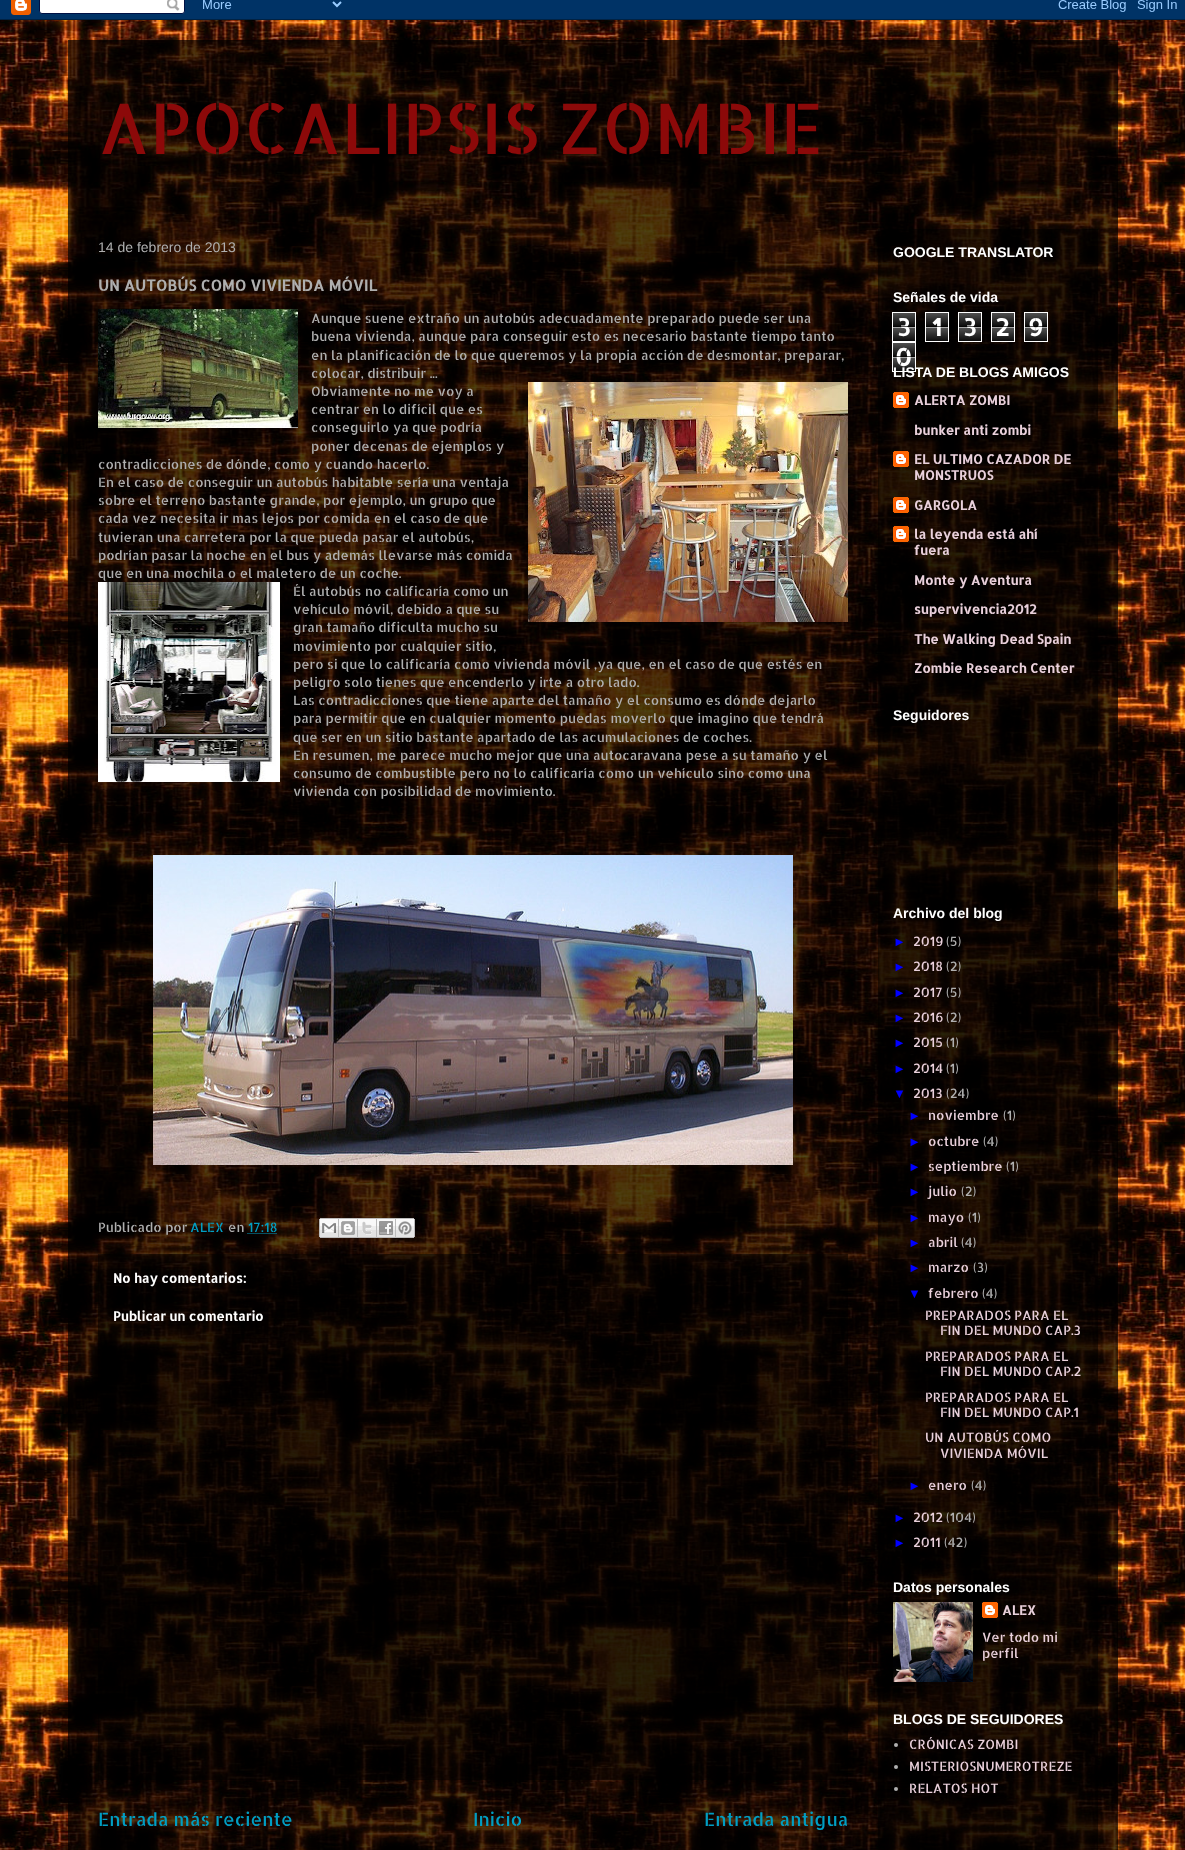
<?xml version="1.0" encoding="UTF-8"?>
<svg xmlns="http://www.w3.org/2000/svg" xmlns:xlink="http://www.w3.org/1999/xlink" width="1185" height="1850">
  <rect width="100%" height="100%" fill="#ffffff" />
  <image x="0" y="20" width="1185" height="1830" xlink:href="image1.png" />
  <image x="0" y="0" width="1185" height="20" xlink:href="image2.png" />
  <rect x="68" y="40" width="1050" height="1810" fill="#000000" fill-opacity="0.7" />
  <rect x="878" y="229" width="220" height="1621" fill="#000000" fill-opacity="0.5" />
  <image x="98" y="309" width="200" height="119" xlink:href="image3.png" />
  <image x="528" y="382" width="320" height="240" xlink:href="image4.png" />
  <image x="98" y="582" width="182" height="200" xlink:href="image5.png" />
  <image x="153" y="855" width="640" height="310" xlink:href="image6.png" />
  <path d="M 247.5 1233.5 h 29.5" fill="none" stroke="#009ec3" stroke-dasharray="1 1" />
  <image x="319" y="1218" width="20" height="20" xlink:href="image7.png" />
  <image x="339" y="1218" width="19" height="20" xlink:href="image8.png" />
  <image x="358" y="1218" width="19" height="20" xlink:href="image9.png" />
  <image x="377" y="1218" width="19" height="20" xlink:href="image10.png" />
  <image x="396" y="1218" width="19" height="20" xlink:href="image11.png" />
  <rect x="98" y="1254" width="750" height="526" fill="#000000" fill-opacity="0.5" />
  <image x="893" y="313" width="22" height="28" xlink:href="image12.png" />
  <rect x="892.5" y="312.5" width="23" height="29" fill="none" stroke="#ffffff" />
  <image x="926" y="313" width="22" height="28" xlink:href="image12.png" />
  <rect x="925.5" y="312.5" width="23" height="29" fill="none" stroke="#ffffff" />
  <image x="959" y="313" width="22" height="28" xlink:href="image12.png" />
  <rect x="958.5" y="312.5" width="23" height="29" fill="none" stroke="#ffffff" />
  <image x="992" y="313" width="22" height="28" xlink:href="image12.png" />
  <rect x="991.5" y="312.5" width="23" height="29" fill="none" stroke="#ffffff" />
  <image x="1025" y="313" width="22" height="28" xlink:href="image12.png" />
  <rect x="1024.5" y="312.5" width="23" height="29" fill="none" stroke="#ffffff" />
  <image x="893" y="343" width="22" height="28" xlink:href="image12.png" />
  <rect x="892.5" y="342.5" width="23" height="29" fill="none" stroke="#ffffff" />
  <image x="893" y="392" width="16" height="16" xlink:href="image13.png" />
  <image x="893" y="451" width="16" height="16" xlink:href="image14.png" />
  <image x="893" y="497" width="16" height="16" xlink:href="image15.png" />
  <image x="893" y="526" width="16" height="16" xlink:href="image16.png" />
  <image x="893" y="1602" width="80" height="80" xlink:href="image17.png" />
  <image x="982" y="1602" width="16" height="16" xlink:href="image18.png" />
  <circle cx="896" cy="1745" r="2" fill="#afafaf" />
  <circle cx="896" cy="1767" r="2" fill="#afafaf" />
  <circle cx="896" cy="1789" r="2" fill="#afafaf" />
  <text x="98" y="154" style="font-family: Allerta Stencil; font-size: 70px; fill: #8c0909">APOCALIPSIS ZOMBIE</text>
  <text x="98" y="252" style="font-family: Liberation Sans; font-size: 14px; fill: #afafaf">14 de febrero de 2013</text>
  <text x="98" y="291" style="font-family: Allerta Stencil; font-size: 15.25px; font-weight: bold; fill: #afafaf">UN AUTOBÚS COMO VIVIENDA MÓVIL</text>
  <text x="311" y="323" style="font-family: Allerta Stencil; font-size: 13px; fill: #afafaf">Aunque suene extraño un autobús adecuadamente preparado puede ser una</text>
  <text x="311" y="341" style="font-family: Allerta Stencil; font-size: 13px; fill: #afafaf">buena vivienda, aunque para conseguir esto es necesario bastante tiempo tanto</text>
  <text x="311" y="360" style="font-family: Allerta Stencil; font-size: 13px; fill: #afafaf">en la planificación de lo que queremos y la propia acción de desmontar, preparar,</text>
  <text x="311" y="378" style="font-family: Allerta Stencil; font-size: 13px; fill: #afafaf">colocar, distribuir ...</text>
  <text x="311" y="396" style="font-family: Allerta Stencil; font-size: 13px; fill: #afafaf">Obviamente no me voy a</text>
  <text x="311" y="414" style="font-family: Allerta Stencil; font-size: 13px; fill: #afafaf">centrar en lo difícil que es</text>
  <text x="311" y="432" style="font-family: Allerta Stencil; font-size: 13px; fill: #afafaf">conseguirlo ya que podría</text>
  <text x="311" y="451" style="font-family: Allerta Stencil; font-size: 13px; fill: #afafaf">poner decenas de ejemplos y</text>
  <text x="98" y="469" style="font-family: Allerta Stencil; font-size: 13px; fill: #afafaf">contradicciones de dónde, como y cuando hacerlo.</text>
  <text x="98" y="487" style="font-family: Allerta Stencil; font-size: 13px; fill: #afafaf">En el caso de conseguir un autobús habitable sería una ventaja</text>
  <text x="98" y="505" style="font-family: Allerta Stencil; font-size: 13px; fill: #afafaf">sobre el terreno bastante grande, por ejemplo, un grupo que</text>
  <text x="98" y="523" style="font-family: Allerta Stencil; font-size: 13px; fill: #afafaf">cada vez necesita ir mas lejos por comida en el caso de que</text>
  <text x="98" y="542" style="font-family: Allerta Stencil; font-size: 13px; fill: #afafaf">tuvieran una carretera por la que pueda pasar el autobús,</text>
  <text x="98" y="560" style="font-family: Allerta Stencil; font-size: 13px; fill: #afafaf">podrían pasar la noche en el bus y además llevarse más comida</text>
  <text x="98" y="578" style="font-family: Allerta Stencil; font-size: 13px; fill: #afafaf">que en una mochila o el maletero de un coche.</text>
  <text x="293" y="596" style="font-family: Allerta Stencil; font-size: 13px; fill: #afafaf">Él autobús no calificaría como un</text>
  <text x="293" y="614" style="font-family: Allerta Stencil; font-size: 13px; fill: #afafaf">vehículo móvil, debido a que su</text>
  <text x="293" y="632" style="font-family: Allerta Stencil; font-size: 13px; fill: #afafaf">gran tamaño dificulta mucho su</text>
  <text x="293" y="651" style="font-family: Allerta Stencil; font-size: 13px; fill: #afafaf">movimiento por cualquier sitio,</text>
  <text x="293" y="669" style="font-family: Allerta Stencil; font-size: 13px; fill: #afafaf">pero si que lo calificaría como vivienda móvil ,ya que, en el caso de que estés en</text>
  <text x="293" y="687" style="font-family: Allerta Stencil; font-size: 13px; fill: #afafaf">peligro solo tienes que encenderlo y irte a otro lado.</text>
  <text x="293" y="705" style="font-family: Allerta Stencil; font-size: 13px; fill: #afafaf">Las contradicciones que tiene aparte del tamaño y el consumo es dónde dejarlo</text>
  <text x="293" y="723" style="font-family: Allerta Stencil; font-size: 13px; fill: #afafaf">para permitir que en cualquier momento puedas moverlo que imagino que tendrá</text>
  <text x="293" y="742" style="font-family: Allerta Stencil; font-size: 13px; fill: #afafaf">que ser en un sitio bastante apartado de las acumulaciones de coches.</text>
  <text x="293" y="760" style="font-family: Allerta Stencil; font-size: 13px; fill: #afafaf">En resumen, me parece mucho mejor que una autocaravana pese a su tamaño y el</text>
  <text x="293" y="778" style="font-family: Allerta Stencil; font-size: 13px; fill: #afafaf">consumo de combustible pero no lo calificaría como un vehículo sino como una</text>
  <text x="293" y="796" style="font-family: Allerta Stencil; font-size: 13px; fill: #afafaf">vivienda con posibilidad de movimiento.</text>
  <text x="98" y="1232" style="font-family: Allerta Stencil; font-size: 13px; fill: #afafaf">Publicado por</text>
  <text x="190" y="1232" style="font-family: Allerta Stencil; font-size: 13px; fill: #009ec3">ALEX</text>
  <text x="228" y="1232" style="font-family: Allerta Stencil; font-size: 13px; fill: #afafaf">en</text>
  <text x="248" y="1232" style="font-family: Allerta Stencil; font-size: 13px; fill: #009ec3">17:18</text>
  <text x="113" y="1283" style="font-family: Allerta Stencil; font-size: 13px; font-weight: bold; fill: #ffffff">No hay comentarios:</text>
  <text x="113" y="1321" style="font-family: Allerta Stencil; font-size: 13px; font-weight: bold; fill: #ffffff">Publicar un comentario</text>
  <text x="98" y="1826" style="font-family: Allerta Stencil; font-size: 18.25px; fill: #009ec3">Entrada más reciente</text>
  <text x="473" y="1826" style="font-family: Allerta Stencil; font-size: 18.25px; fill: #009ec3">Inicio</text>
  <text x="704" y="1826" style="font-family: Allerta Stencil; font-size: 18.25px; fill: #009ec3">Entrada antigua</text>
  <text x="893" y="257" style="font-family: Liberation Sans; font-size: 14px; font-weight: bold; fill: #ffffff">GOOGLE TRANSLATOR</text>
  <text x="893" y="302" style="font-family: Liberation Sans; font-size: 14px; font-weight: bold; fill: #ffffff">Señales de vida</text>
  <text x="897" y="336" style="font-family: Allerta Stencil; font-size: 24px; font-weight: bold; fill: #ffffff">3</text>
  <rect x="893" y="326" width="22" height="1" fill="#000000" fill-opacity="0.65" />
  <rect x="893" y="327" width="22" height="1" fill="#ffffff" fill-opacity="0.65" />
  <text x="932" y="336" style="font-family: Allerta Stencil; font-size: 24px; font-weight: bold; fill: #ffffff">1</text>
  <rect x="926" y="326" width="22" height="1" fill="#000000" fill-opacity="0.65" />
  <rect x="926" y="327" width="22" height="1" fill="#ffffff" fill-opacity="0.65" />
  <text x="963" y="336" style="font-family: Allerta Stencil; font-size: 24px; font-weight: bold; fill: #ffffff">3</text>
  <rect x="959" y="326" width="22" height="1" fill="#000000" fill-opacity="0.65" />
  <rect x="959" y="327" width="22" height="1" fill="#ffffff" fill-opacity="0.65" />
  <text x="995" y="336" style="font-family: Allerta Stencil; font-size: 24px; font-weight: bold; fill: #ffffff">2</text>
  <rect x="992" y="326" width="22" height="1" fill="#000000" fill-opacity="0.65" />
  <rect x="992" y="327" width="22" height="1" fill="#ffffff" fill-opacity="0.65" />
  <text x="1028" y="336" style="font-family: Allerta Stencil; font-size: 24px; font-weight: bold; fill: #ffffff">9</text>
  <rect x="1025" y="326" width="22" height="1" fill="#000000" fill-opacity="0.65" />
  <rect x="1025" y="327" width="22" height="1" fill="#ffffff" fill-opacity="0.65" />
  <text x="895" y="366" style="font-family: Allerta Stencil; font-size: 24px; font-weight: bold; fill: #ffffff">0</text>
  <rect x="893" y="356" width="22" height="1" fill="#000000" fill-opacity="0.65" />
  <rect x="893" y="357" width="22" height="1" fill="#ffffff" fill-opacity="0.65" />
  <text x="893" y="377" style="font-family: Liberation Sans; font-size: 14px; font-weight: bold; fill: #ffffff">LISTA DE BLOGS AMIGOS</text>
  <text x="914" y="405" style="font-family: Allerta Stencil; font-size: 13px; font-weight: bold; fill: #ead1dc">ALERTA ZOMBI</text>
  <text x="914" y="435" style="font-family: Allerta Stencil; font-size: 13px; font-weight: bold; fill: #ead1dc">bunker anti zombi</text>
  <text x="914" y="464" style="font-family: Allerta Stencil; font-size: 13px; font-weight: bold; fill: #ead1dc">EL ULTIMO CAZADOR DE</text>
  <text x="914" y="480" style="font-family: Allerta Stencil; font-size: 13px; font-weight: bold; fill: #ead1dc">MONSTRUOS</text>
  <text x="914" y="510" style="font-family: Allerta Stencil; font-size: 13px; font-weight: bold; fill: #ead1dc">GARGOLA</text>
  <text x="914" y="539" style="font-family: Allerta Stencil; font-size: 13px; font-weight: bold; fill: #ead1dc">la leyenda está ahí</text>
  <text x="914" y="555" style="font-family: Allerta Stencil; font-size: 13px; font-weight: bold; fill: #ead1dc">fuera</text>
  <text x="914" y="585" style="font-family: Allerta Stencil; font-size: 13px; font-weight: bold; fill: #ead1dc">Monte y Aventura</text>
  <text x="914" y="614" style="font-family: Allerta Stencil; font-size: 13px; font-weight: bold; fill: #ead1dc">supervivencia2012</text>
  <text x="914" y="644" style="font-family: Allerta Stencil; font-size: 13px; font-weight: bold; fill: #ead1dc">The Walking Dead Spain</text>
  <text x="914" y="673" style="font-family: Allerta Stencil; font-size: 13px; font-weight: bold; fill: #ead1dc">Zombie Research Center</text>
  <text x="893" y="720" style="font-family: Liberation Sans; font-size: 14px; font-weight: bold; fill: #ffffff">Seguidores</text>
  <text x="893" y="918" style="font-family: Liberation Sans; font-size: 14px; font-weight: bold; fill: #ffffff">Archivo del blog</text>
  <text x="893" y="946" style="font-family: Liberation Sans; font-size: 13px; fill: #0000ff">►</text>
  <text x="913" y="946" style="font-family: Allerta Stencil; font-size: 13px; fill: #ead1dc">2019</text>
  <text x="946" y="946" style="font-family: Allerta Stencil; font-size: 13px; fill: #afafaf">(5)</text>
  <text x="893" y="971" style="font-family: Liberation Sans; font-size: 13px; fill: #0000ff">►</text>
  <text x="913" y="971" style="font-family: Allerta Stencil; font-size: 13px; fill: #ead1dc">2018</text>
  <text x="946" y="971" style="font-family: Allerta Stencil; font-size: 13px; fill: #afafaf">(2)</text>
  <text x="893" y="997" style="font-family: Liberation Sans; font-size: 13px; fill: #0000ff">►</text>
  <text x="913" y="997" style="font-family: Allerta Stencil; font-size: 13px; fill: #ead1dc">2017</text>
  <text x="946" y="997" style="font-family: Allerta Stencil; font-size: 13px; fill: #afafaf">(5)</text>
  <text x="893" y="1022" style="font-family: Liberation Sans; font-size: 13px; fill: #0000ff">►</text>
  <text x="913" y="1022" style="font-family: Allerta Stencil; font-size: 13px; fill: #ead1dc">2016</text>
  <text x="946" y="1022" style="font-family: Allerta Stencil; font-size: 13px; fill: #afafaf">(2)</text>
  <text x="893" y="1047" style="font-family: Liberation Sans; font-size: 13px; fill: #0000ff">►</text>
  <text x="913" y="1047" style="font-family: Allerta Stencil; font-size: 13px; fill: #ead1dc">2015</text>
  <text x="946" y="1047" style="font-family: Allerta Stencil; font-size: 13px; fill: #afafaf">(1)</text>
  <text x="893" y="1073" style="font-family: Liberation Sans; font-size: 13px; fill: #0000ff">►</text>
  <text x="913" y="1073" style="font-family: Allerta Stencil; font-size: 13px; fill: #ead1dc">2014</text>
  <text x="946" y="1073" style="font-family: Allerta Stencil; font-size: 13px; fill: #afafaf">(1)</text>
  <text x="893" y="1098" style="font-family: Liberation Sans; font-size: 13px; fill: #0000ff">▼</text>
  <text x="913" y="1098" style="font-family: Allerta Stencil; font-size: 13px; fill: #ead1dc">2013</text>
  <text x="946" y="1098" style="font-family: Allerta Stencil; font-size: 13px; fill: #afafaf">(24)</text>
  <text x="908" y="1120" style="font-family: Liberation Sans; font-size: 13px; fill: #0000ff">►</text>
  <text x="928" y="1120" style="font-family: Allerta Stencil; font-size: 13px; fill: #ead1dc">noviembre</text>
  <text x="1003" y="1120" style="font-family: Allerta Stencil; font-size: 13px; fill: #afafaf">(1)</text>
  <text x="908" y="1146" style="font-family: Liberation Sans; font-size: 13px; fill: #0000ff">►</text>
  <text x="928" y="1146" style="font-family: Allerta Stencil; font-size: 13px; fill: #ead1dc">octubre</text>
  <text x="983" y="1146" style="font-family: Allerta Stencil; font-size: 13px; fill: #afafaf">(4)</text>
  <text x="908" y="1171" style="font-family: Liberation Sans; font-size: 13px; fill: #0000ff">►</text>
  <text x="928" y="1171" style="font-family: Allerta Stencil; font-size: 13px; fill: #ead1dc">septiembre</text>
  <text x="1006" y="1171" style="font-family: Allerta Stencil; font-size: 13px; fill: #afafaf">(1)</text>
  <text x="908" y="1196" style="font-family: Liberation Sans; font-size: 13px; fill: #0000ff">►</text>
  <text x="928" y="1196" style="font-family: Allerta Stencil; font-size: 13px; fill: #ead1dc">julio</text>
  <text x="961" y="1196" style="font-family: Allerta Stencil; font-size: 13px; fill: #afafaf">(2)</text>
  <text x="908" y="1222" style="font-family: Liberation Sans; font-size: 13px; fill: #0000ff">►</text>
  <text x="928" y="1222" style="font-family: Allerta Stencil; font-size: 13px; fill: #ead1dc">mayo</text>
  <text x="968" y="1222" style="font-family: Allerta Stencil; font-size: 13px; fill: #afafaf">(1)</text>
  <text x="908" y="1247" style="font-family: Liberation Sans; font-size: 13px; fill: #0000ff">►</text>
  <text x="928" y="1247" style="font-family: Allerta Stencil; font-size: 13px; fill: #ead1dc">abril</text>
  <text x="961" y="1247" style="font-family: Allerta Stencil; font-size: 13px; fill: #afafaf">(4)</text>
  <text x="908" y="1272" style="font-family: Liberation Sans; font-size: 13px; fill: #0000ff">►</text>
  <text x="928" y="1272" style="font-family: Allerta Stencil; font-size: 13px; fill: #ead1dc">marzo</text>
  <text x="973" y="1272" style="font-family: Allerta Stencil; font-size: 13px; fill: #afafaf">(3)</text>
  <text x="908" y="1298" style="font-family: Liberation Sans; font-size: 13px; fill: #0000ff">▼</text>
  <text x="928" y="1298" style="font-family: Allerta Stencil; font-size: 13px; fill: #ead1dc">febrero</text>
  <text x="982" y="1298" style="font-family: Allerta Stencil; font-size: 13px; fill: #afafaf">(4)</text>
  <text x="925" y="1320" style="font-family: Allerta Stencil; font-size: 13px; fill: #ead1dc">PREPARADOS PARA EL</text>
  <text x="940" y="1335" style="font-family: Allerta Stencil; font-size: 13px; fill: #ead1dc">FIN DEL MUNDO CAP.3</text>
  <text x="925" y="1361" style="font-family: Allerta Stencil; font-size: 13px; fill: #ead1dc">PREPARADOS PARA EL</text>
  <text x="940" y="1376" style="font-family: Allerta Stencil; font-size: 13px; fill: #ead1dc">FIN DEL MUNDO CAP.2</text>
  <text x="925" y="1402" style="font-family: Allerta Stencil; font-size: 13px; fill: #ead1dc">PREPARADOS PARA EL</text>
  <text x="940" y="1417" style="font-family: Allerta Stencil; font-size: 13px; fill: #ead1dc">FIN DEL MUNDO CAP.1</text>
  <text x="925" y="1442" style="font-family: Allerta Stencil; font-size: 13px; fill: #ead1dc">UN AUTOBÚS COMO</text>
  <text x="940" y="1458" style="font-family: Allerta Stencil; font-size: 13px; fill: #ead1dc">VIVIENDA MÓVIL</text>
  <text x="908" y="1490" style="font-family: Liberation Sans; font-size: 13px; fill: #0000ff">►</text>
  <text x="928" y="1490" style="font-family: Allerta Stencil; font-size: 13px; fill: #ead1dc">enero</text>
  <text x="971" y="1490" style="font-family: Allerta Stencil; font-size: 13px; fill: #afafaf">(4)</text>
  <text x="893" y="1522" style="font-family: Liberation Sans; font-size: 13px; fill: #0000ff">►</text>
  <text x="913" y="1522" style="font-family: Allerta Stencil; font-size: 13px; fill: #ead1dc">2012</text>
  <text x="946" y="1522" style="font-family: Allerta Stencil; font-size: 13px; fill: #afafaf">(104)</text>
  <text x="893" y="1547" style="font-family: Liberation Sans; font-size: 13px; fill: #0000ff">►</text>
  <text x="913" y="1547" style="font-family: Allerta Stencil; font-size: 13px; fill: #ead1dc">2011</text>
  <text x="944" y="1547" style="font-family: Allerta Stencil; font-size: 13px; fill: #afafaf">(42)</text>
  <text x="893" y="1592" style="font-family: Liberation Sans; font-size: 14px; font-weight: bold; fill: #ffffff">Datos personales</text>
  <text x="1002" y="1615" style="font-family: Allerta Stencil; font-size: 13px; font-weight: bold; fill: #ead1dc">ALEX</text>
  <text x="982" y="1642" style="font-family: Allerta Stencil; font-size: 13px; fill: #ead1dc">Ver todo mi</text>
  <text x="982" y="1658" style="font-family: Allerta Stencil; font-size: 13px; fill: #ead1dc">perfil</text>
  <text x="893" y="1724" style="font-family: Liberation Sans; font-size: 14px; font-weight: bold; fill: #ffffff">BLOGS DE SEGUIDORES</text>
  <text x="909" y="1749" style="font-family: Allerta Stencil; font-size: 13px; fill: #ead1dc">CRÓNICAS ZOMBI</text>
  <text x="909" y="1771" style="font-family: Allerta Stencil; font-size: 13px; fill: #ead1dc">MISTERIOSNUMEROTREZE</text>
  <text x="909" y="1793" style="font-family: Allerta Stencil; font-size: 13px; fill: #ead1dc">RELATOS HOT</text>
</svg>
